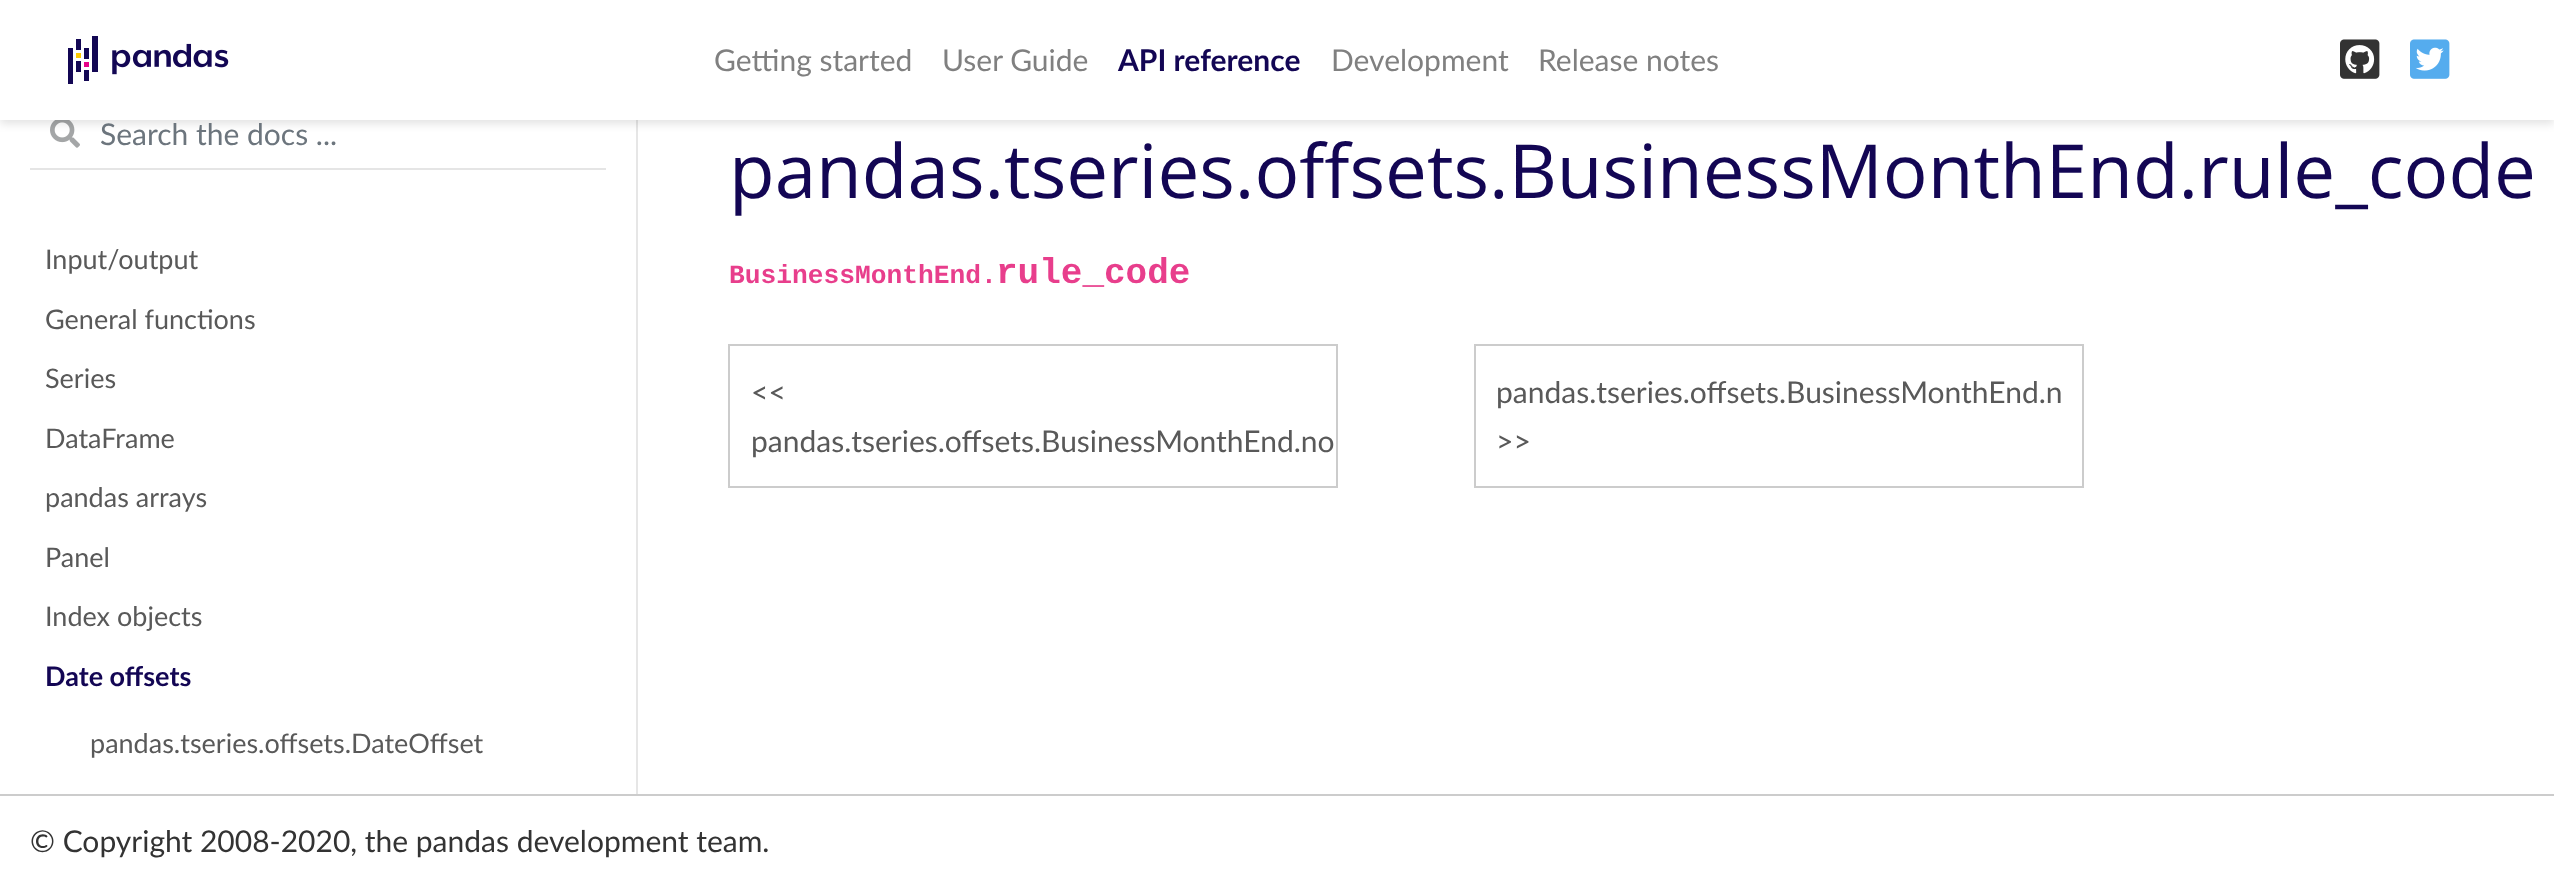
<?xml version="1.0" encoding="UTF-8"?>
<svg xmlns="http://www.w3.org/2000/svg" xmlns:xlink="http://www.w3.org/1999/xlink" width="2554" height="876">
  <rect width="100%" height="100%" fill="#ffffff" />
  <rect x="636" y="120" width="2" height="674" fill="#e6e6e6" />
  <image x="50" y="120" width="30" height="28" xlink:href="image4.png" />
  <rect y="4" width="2554" height="120" fill="#000000" fill-opacity="0.11" filter="blur(4px)" />
  <rect width="2554" height="120" fill="#ffffff" />
  <image x="68" y="36" width="161" height="48" xlink:href="image1.png" />
  <image x="2340" y="39" width="40" height="40" xlink:href="image2.png" />
  <image x="2410" y="39" width="40" height="40" xlink:href="image3.png" />
  <rect x="30" y="168" width="576" height="2" fill="#e5e5e5" />
  <rect x="729" y="345" width="608" height="142" fill="none" stroke="#cccccc" stroke-width="2" />
  <rect x="1475" y="345" width="608" height="142" fill="none" stroke="#cccccc" stroke-width="2" />
  <rect y="794" width="2554" height="2" fill="#cccccc" />
  <text x="714" y="71" style="font-family: Lato; font-size: 30px; fill: #808080">Getting started</text>
  <text x="942" y="71" style="font-family: Lato; font-size: 30px; fill: #808080">User Guide</text>
  <text x="1118" y="71" style="font-family: Lato; font-size: 30px; font-weight: bold; fill: #130654">API reference</text>
  <text x="1331" y="71" style="font-family: Lato; font-size: 30px; fill: #808080">Development</text>
  <text x="1538" y="71" style="font-family: Lato; font-size: 30px; fill: #808080">Release notes</text>
  <text x="100" y="145" style="font-family: Lato; font-size: 30px; fill: #6c757d">Search the docs ...</text>
  <text x="45" y="269" style="font-family: Lato; font-size: 27px; fill: #595959">Input/output</text>
  <text x="45" y="329" style="font-family: Lato; font-size: 27px; fill: #595959">General functions</text>
  <text x="45" y="388" style="font-family: Lato; font-size: 27px; fill: #595959">Series</text>
  <text x="45" y="448" style="font-family: Lato; font-size: 27px; fill: #595959">DataFrame</text>
  <text x="45" y="507" style="font-family: Lato; font-size: 27px; fill: #595959">pandas arrays</text>
  <text x="45" y="567" style="font-family: Lato; font-size: 27px; fill: #595959">Panel</text>
  <text x="45" y="626" style="font-family: Lato; font-size: 27px; fill: #595959">Index objects</text>
  <text x="45" y="686" style="font-family: Lato; font-size: 27px; font-weight: bold; fill: #130654">Date offsets</text>
  <text x="90" y="753" style="font-family: Lato; font-size: 27px; fill: #595959">pandas.tseries.offsets.DateOffset</text>
  <text x="729" y="198" style="font-family: Open Sans; font-size: 74.6px; fill: #130654">pandas.tseries.offsets.BusinessMonthEnd.rule_code</text>
  <text x="729" y="283" style="font-family: Liberation Mono; font-size: 26.25px; font-weight: bold; fill: #e83e8c">BusinessMonthEnd.</text>
  <text x="996" y="283" style="font-family: Liberation Mono; font-size: 36px; font-weight: bold; fill: #e83e8c">rule_code</text>
  <text x="751" y="403" style="font-family: Lato; font-size: 30px; fill: #595959">&lt;&lt;</text>
  <text x="751" y="452" style="font-family: Lato; font-size: 30px; fill: #595959">pandas.tseries.offsets.BusinessMonthEnd.no</text>
  <text x="1496" y="403" style="font-family: Lato; font-size: 30px; fill: #595959">pandas.tseries.offsets.BusinessMonthEnd.n</text>
  <text x="1496" y="452" style="font-family: Lato; font-size: 30px; fill: #595959">&gt;&gt;</text>
  <text x="30" y="852" style="font-family: Lato; font-size: 30px; fill: #333333">© Copyright 2008-2020, the pandas development team.</text>
</svg>
